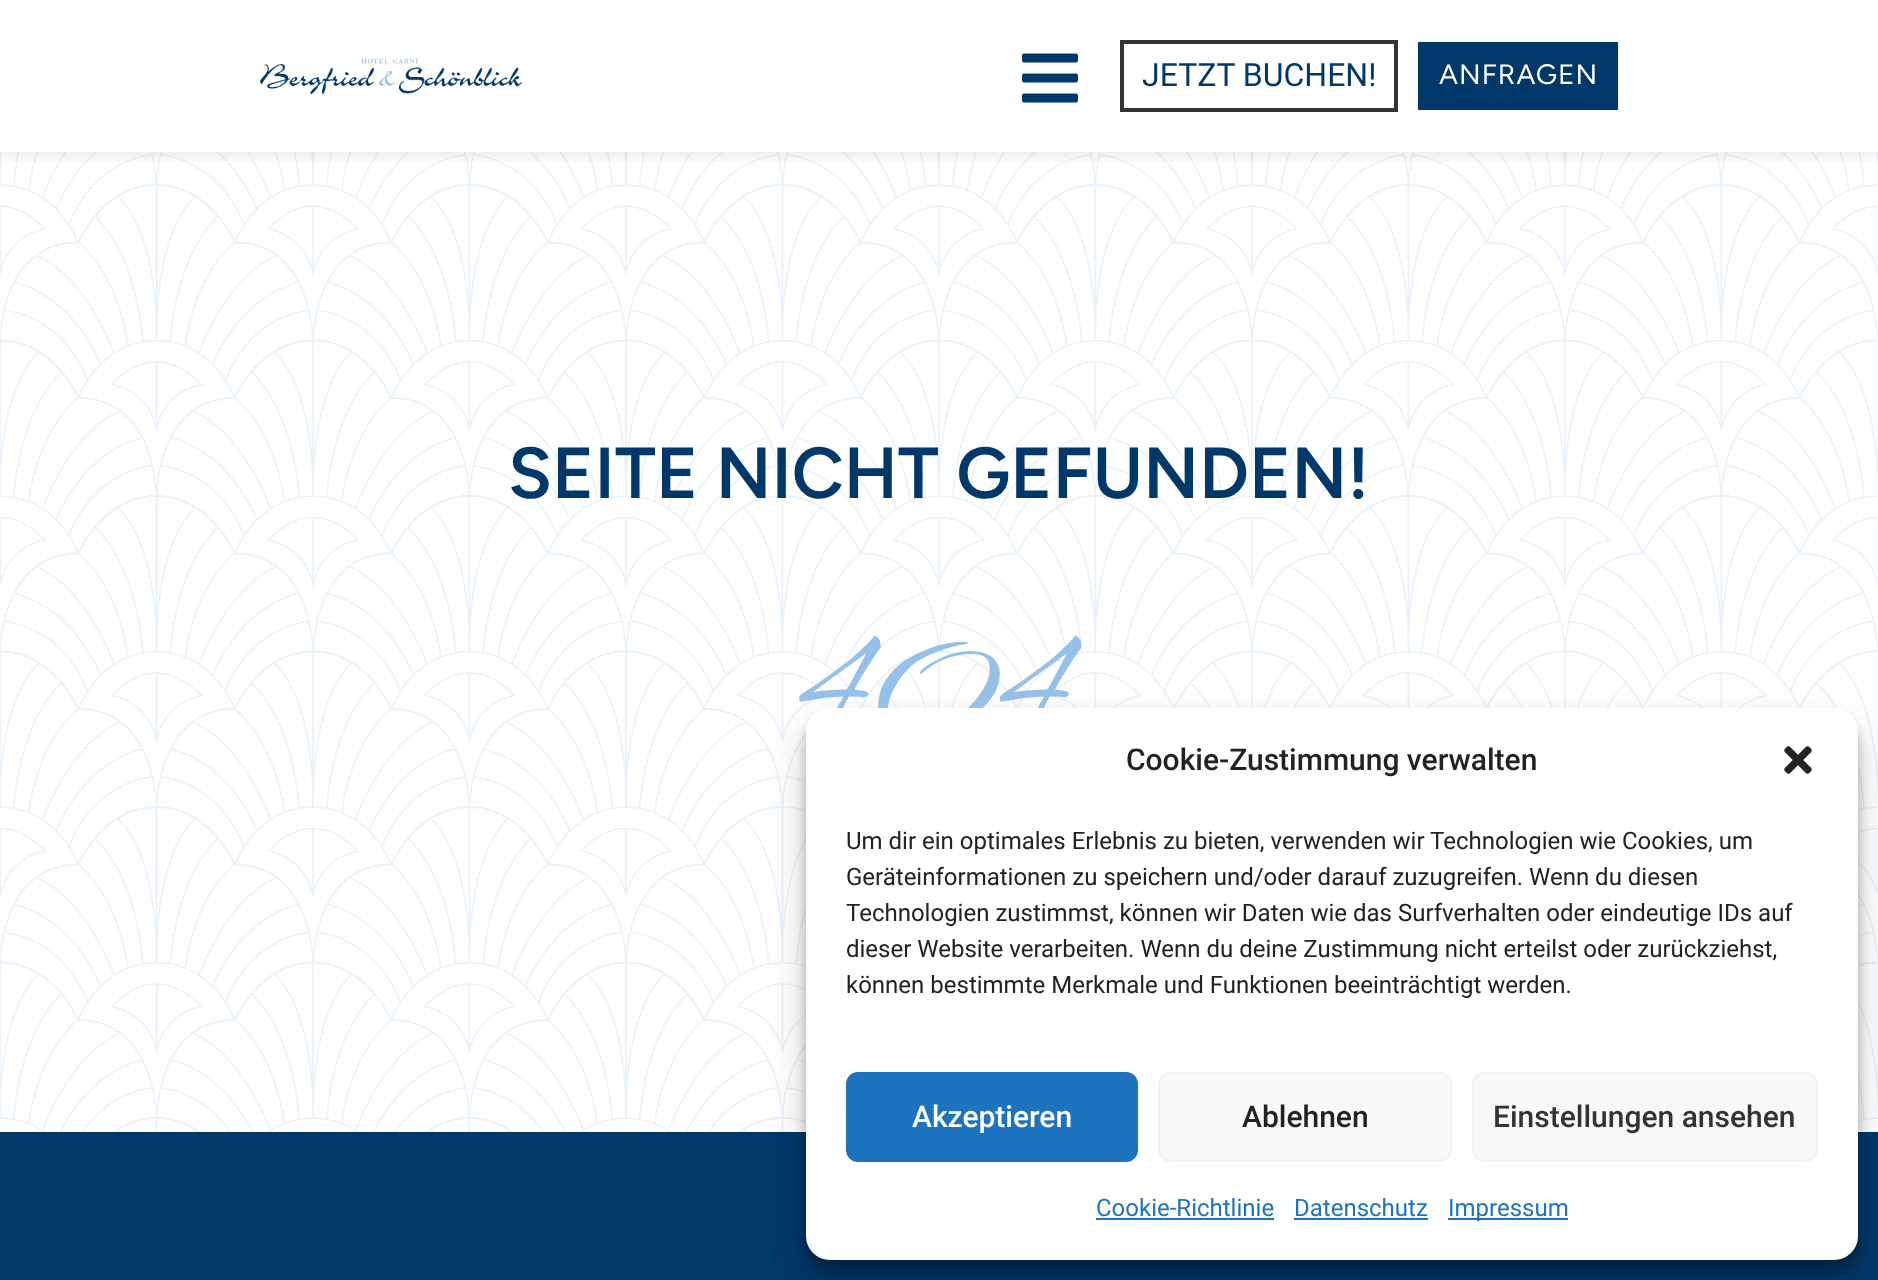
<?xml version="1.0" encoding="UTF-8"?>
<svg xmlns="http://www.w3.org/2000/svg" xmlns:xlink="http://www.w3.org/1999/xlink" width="1878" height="1280">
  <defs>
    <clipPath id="clip1"><rect x="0" y="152" width="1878" height="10" /></clipPath>
  </defs>
  <rect width="100%" height="100%" fill="#ffffff" />
  <image x="0" y="152" width="1878" height="980" xlink:href="image3.png" />
  <g clip-path="url(#clip1)">
    <rect width="1878" height="152" fill="#000000" fill-opacity="0.13" filter="blur(10px)" />
  </g>
  <image x="260" y="58" width="262" height="37" xlink:href="image1.png" />
  <image x="1022" y="53" width="56" height="50" xlink:href="image2.png" />
  <rect x="1122" y="42" width="274" height="68" fill="none" stroke="#333333" stroke-width="4" />
  <rect x="1418" y="42" width="200" height="68" fill="#00386a" />
  <rect y="1132" width="1878" height="148" fill="#00386a" />
  <rect x="806" y="720" width="1052" height="552" rx="24" fill="#000000" fill-opacity="0.23" filter="blur(6px)" />
  <rect x="806" y="728" width="1052" height="552" rx="24" fill="#000000" fill-opacity="0.19" filter="blur(20px)" />
  <text x="1142" y="86" style="font-family: Roboto; font-size: 32px; fill: #00386a">JETZT BUCHEN!</text>
  <text x="1439" y="84" style="font-family: Figtree; font-size: 28px; letter-spacing: 1px; fill: #ffffff">ANFRAGEN</text>
  <text x="508" y="498" style="font-family: Figtree; font-size: 72px; font-weight: 600; fill: #00386a">SEITE NICHT GEFUNDEN!</text>
  <text x="798" y="732" style="font-family: Corinthia; font-size: 244px; fill: #95c0e8">404</text>
  <rect x="806" y="708" width="1052" height="552" rx="24" fill="#ffffff" />
  <text x="1126" y="770" style="font-family: Roboto; font-size: 30px; font-weight: 500; fill: #222222">Cookie-Zustimmung verwalten</text>
  <image x="1784" y="746" width="28" height="28" xlink:href="image4.png" />
  <text x="846" y="849" style="font-family: Roboto; font-size: 24px; fill: #222222">Um dir ein optimales Erlebnis zu bieten, verwenden wir Technologien wie Cookies, um</text>
  <text x="846" y="885" style="font-family: Roboto; font-size: 24px; fill: #222222">Geräteinformationen zu speichern und/oder darauf zuzugreifen. Wenn du diesen</text>
  <text x="846" y="921" style="font-family: Roboto; font-size: 24px; fill: #222222">Technologien zustimmst, können wir Daten wie das Surfverhalten oder eindeutige IDs auf</text>
  <text x="846" y="957" style="font-family: Roboto; font-size: 24px; fill: #222222">dieser Website verarbeiten. Wenn du deine Zustimmung nicht erteilst oder zurückziehst,</text>
  <text x="846" y="993" style="font-family: Roboto; font-size: 24px; fill: #222222">können bestimmte Merkmale und Funktionen beeinträchtigt werden.</text>
  <rect x="847" y="1073" width="290" height="88" rx="11" fill="#1e73be" stroke="#1e73be" stroke-width="2" />
  <text x="912" y="1127" style="font-family: Roboto; font-size: 30px; font-weight: 500; fill: #ffffff">Akzeptieren</text>
  <rect x="1159" y="1073" width="292" height="88" rx="11" fill="#f9f9f9" stroke="#f2f2f2" stroke-width="2" />
  <text x="1242" y="1127" style="font-family: Roboto; font-size: 30px; font-weight: 500; fill: #222222">Ablehnen</text>
  <rect x="1473" y="1073" width="344" height="88" rx="11" fill="#f9f9f9" stroke="#f2f2f2" stroke-width="2" />
  <text x="1493" y="1127" style="font-family: Roboto; font-size: 30px; font-weight: 500; fill: #333333">Einstellungen ansehen</text>
  <text x="1096" y="1216" style="font-family: Roboto; font-size: 24px; fill: #1e73be">Cookie-Richtlinie</text>
  <rect x="1096" y="1218" width="178" height="2" fill="#1e73be" />
  <text x="1294" y="1216" style="font-family: Roboto; font-size: 24px; fill: #1e73be">Datenschutz</text>
  <rect x="1294" y="1218" width="134" height="2" fill="#1e73be" />
  <rect x="1448" y="1218" width="120" height="2" fill="#1e73be" />
  <text x="1448" y="1216" style="font-family: Roboto; font-size: 24px; fill: #1e73be">Impressum</text>
</svg>
